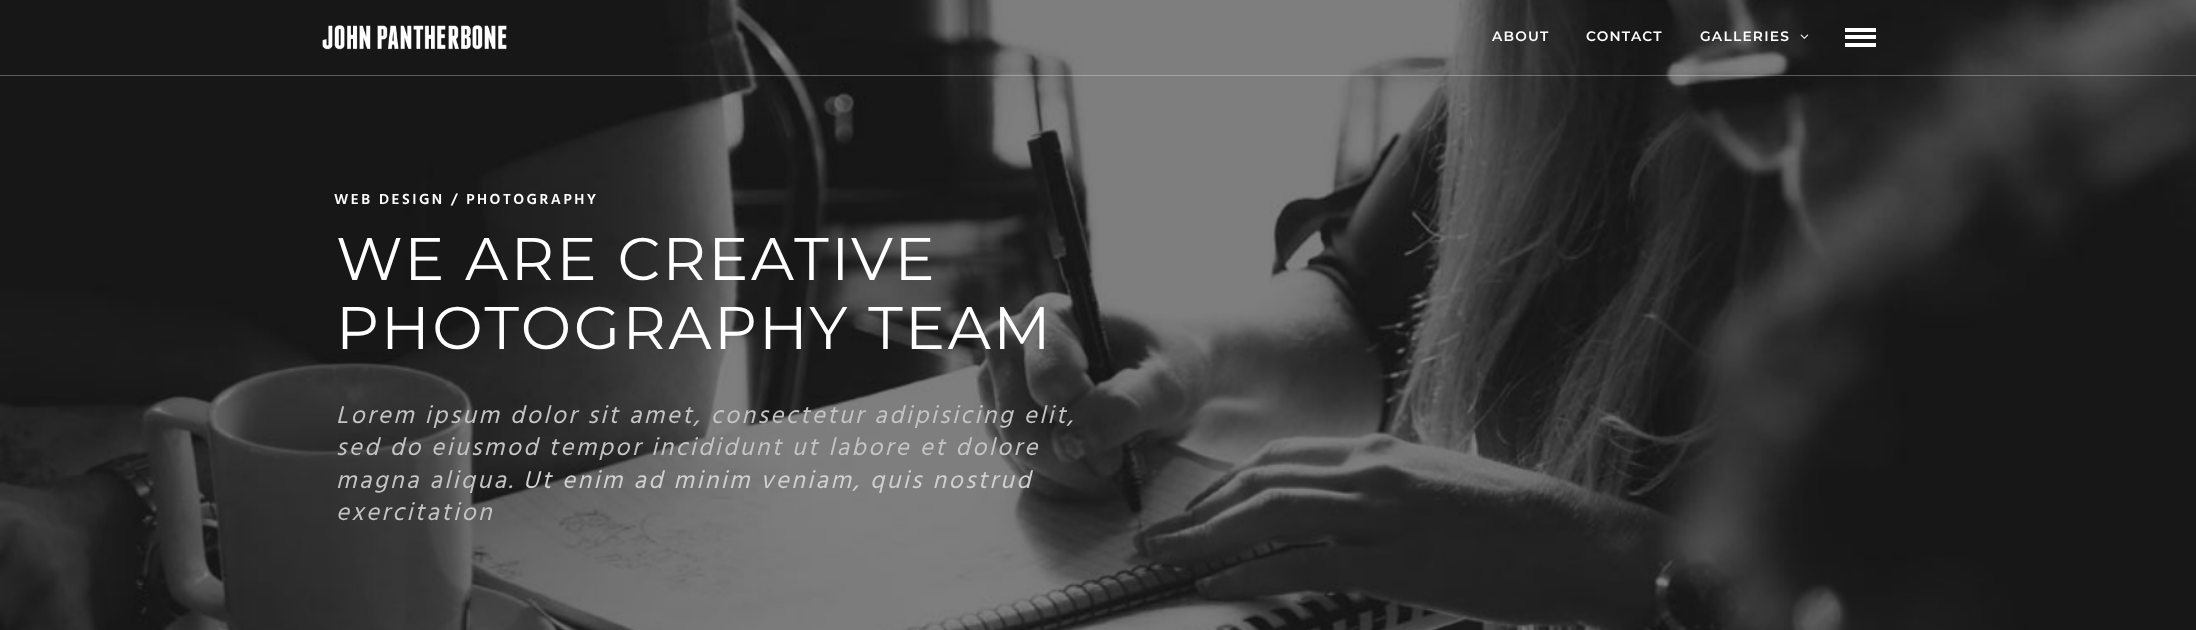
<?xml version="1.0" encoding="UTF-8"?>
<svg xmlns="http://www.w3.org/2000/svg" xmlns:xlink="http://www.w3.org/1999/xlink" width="2196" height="630">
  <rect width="100%" height="100%" fill="#ffffff" />
  <image x="0" y="0" width="2196" height="630" xlink:href="image3.png" />
  <rect y="75" width="2196" height="1" fill="#ffffff" fill-opacity="0.3" />
  <image x="322" y="25" width="185" height="25" xlink:href="image1.png" />
  <image x="1800" y="34" width="9" height="5" xlink:href="image2.png" />
  <rect x="1845" y="28" width="31" height="4" fill="#ffffff" />
  <rect x="1845" y="35" width="31" height="4" fill="#ffffff" />
  <rect x="1845" y="43" width="31" height="4" fill="#ffffff" />
  <text x="1492" y="41" style="font-family: Montserrat; font-size: 13.75px; font-weight: 600; letter-spacing: 1.25px; fill: #ffffff">ABOUT</text>
  <text x="1586" y="41" style="font-family: Montserrat; font-size: 13.75px; font-weight: 600; letter-spacing: 1.25px; fill: #ffffff">CONTACT</text>
  <text x="1700" y="41" style="font-family: Montserrat; font-size: 13.75px; font-weight: 600; letter-spacing: 1.25px; fill: #ffffff">GALLERIES</text>
  <text x="334" y="204" style="font-family: Hind; font-size: 15px; font-weight: 600; letter-spacing: 2.5px; fill: #ffffff">WEB DESIGN / PHOTOGRAPHY</text>
  <text x="336" y="280" style="font-family: Montserrat; font-size: 60px; font-weight: 100; letter-spacing: 2.5px; fill: #ffffff">WE ARE CREATIVE</text>
  <text x="336" y="349" style="font-family: Montserrat; font-size: 60px; font-weight: 100; letter-spacing: 2.5px; fill: #ffffff">PHOTOGRAPHY TEAM</text>
  <text x="336" y="423" style="font-family: Hind; font-size: 25px; font-style: italic; letter-spacing: 2.5px; fill: #c4c4c4">Lorem ipsum dolor sit amet, consectetur adipisicing elit,</text>
  <text x="336" y="455" style="font-family: Hind; font-size: 25px; font-style: italic; letter-spacing: 2.5px; fill: #c4c4c4">sed do</text>
  <text x="431" y="455" style="font-family: Hind; font-size: 25px; font-style: italic; letter-spacing: 2.5px; fill: #c4c4c4">eiusmod tempor incididunt ut labore et dolore</text>
  <text x="336" y="488" style="font-family: Hind; font-size: 25px; font-style: italic; letter-spacing: 2.5px; fill: #c4c4c4">magna aliqua.</text>
  <text x="523" y="488" style="font-family: Hind; font-size: 25px; font-style: italic; letter-spacing: 2.5px; fill: #d0d0d0">Ut enim ad minim veniam, quis nostrud</text>
  <text x="336" y="520" style="font-family: Hind; font-size: 25px; font-style: italic; letter-spacing: 2.5px; fill: #c4c4c4">exercitation</text>
</svg>
